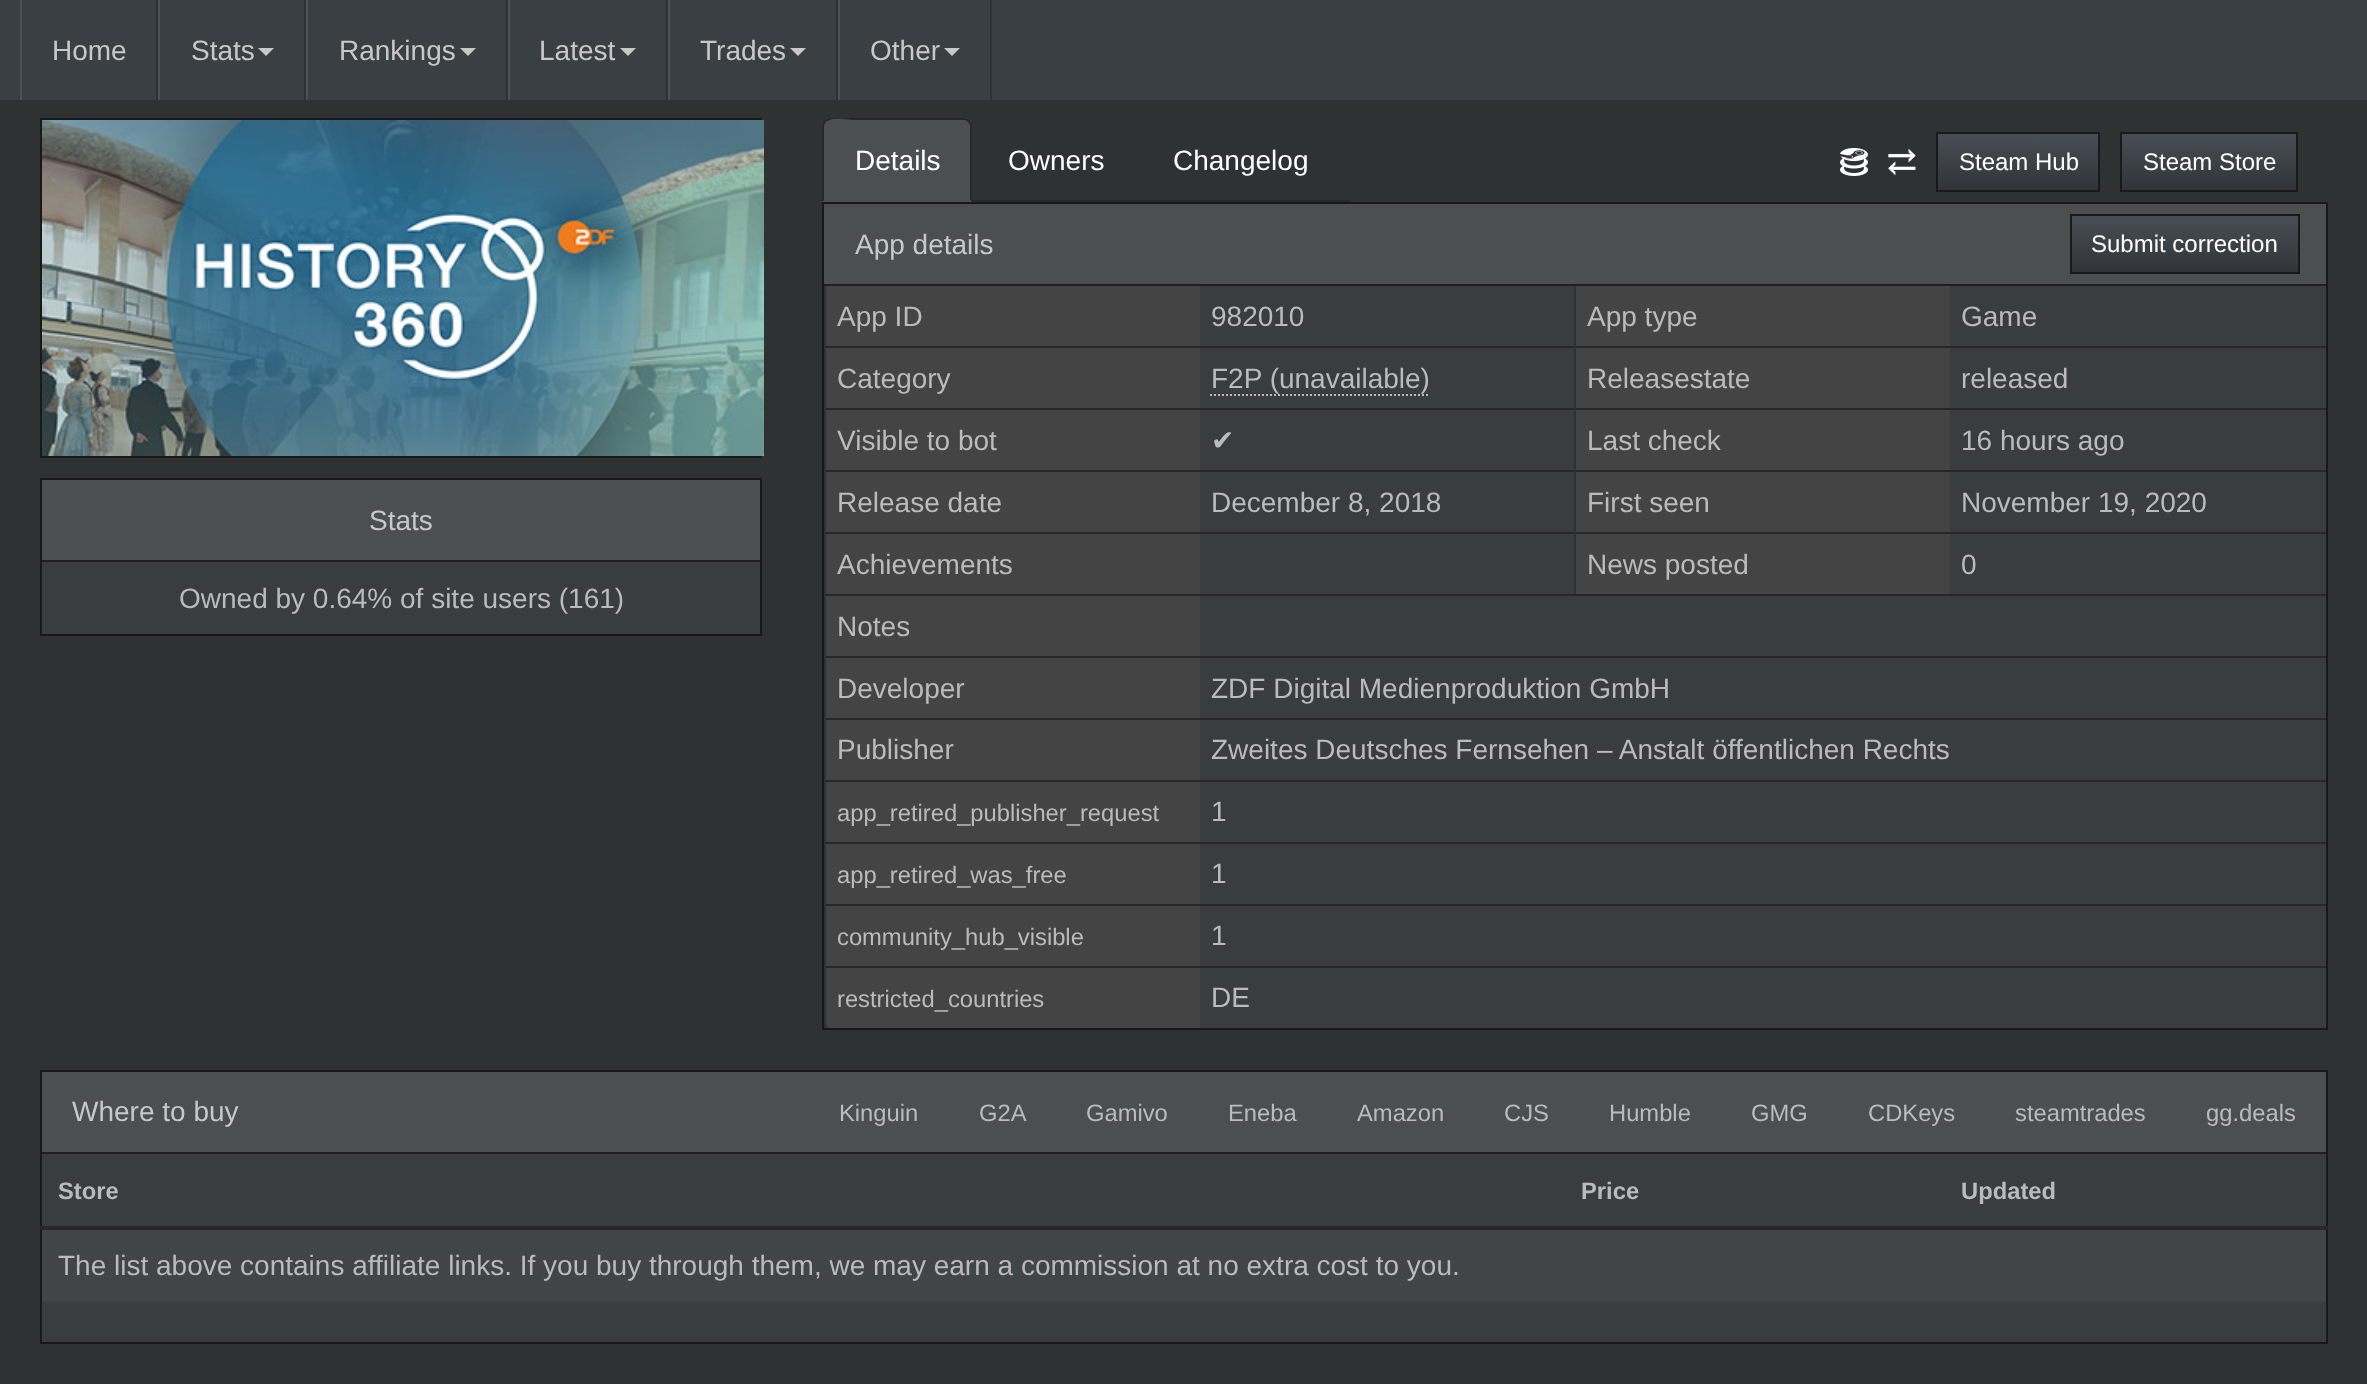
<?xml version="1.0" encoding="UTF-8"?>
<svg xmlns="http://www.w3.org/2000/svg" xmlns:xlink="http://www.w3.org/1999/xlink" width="2367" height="1384">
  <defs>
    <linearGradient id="g1" gradientUnits="userSpaceOnUse" x1="2018" y1="134" x2="2018" y2="190"><stop offset="0" stop-color="#484e55" /><stop offset="0.6" stop-color="#3a3f44" /><stop offset="1" stop-color="#313539" /></linearGradient>
    <linearGradient id="g2" gradientUnits="userSpaceOnUse" x1="2209" y1="134" x2="2209" y2="190"><stop offset="0" stop-color="#484e55" /><stop offset="0.6" stop-color="#3a3f44" /><stop offset="1" stop-color="#313539" /></linearGradient>
    <linearGradient id="g3" gradientUnits="userSpaceOnUse" x1="2185" y1="216" x2="2185" y2="272"><stop offset="0" stop-color="#484e55" /><stop offset="0.6" stop-color="#3a3f44" /><stop offset="1" stop-color="#313539" /></linearGradient>
  </defs>
  <rect width="100%" height="100%" fill="#2f3232" />
  <rect width="2367" height="100" fill="#3a3f44" />
  <rect x="156" width="2" height="100" fill="#2e3236" />
  <rect x="20" width="2" height="100" fill="#4e5257" />
  <rect x="304" width="2" height="100" fill="#2e3236" />
  <rect x="158" width="2" height="100" fill="#4e5257" />
  <path d="M 258 48 h 16 l -8 8 z" fill="#c8c8c8" />
  <rect x="506" width="2" height="100" fill="#2e3236" />
  <rect x="306" width="2" height="100" fill="#4e5257" />
  <path d="M 460 48 h 16 l -8 8 z" fill="#c8c8c8" />
  <rect x="666" width="2" height="100" fill="#2e3236" />
  <rect x="508" width="2" height="100" fill="#4e5257" />
  <path d="M 620 48 h 16 l -8 8 z" fill="#c8c8c8" />
  <rect x="836" width="2" height="100" fill="#2e3236" />
  <rect x="668" width="2" height="100" fill="#4e5257" />
  <path d="M 790 48 h 16 l -8 8 z" fill="#c8c8c8" />
  <rect x="990" width="2" height="100" fill="#2e3236" />
  <rect x="838" width="2" height="100" fill="#4e5257" />
  <path d="M 944 48 h 16 l -8 8 z" fill="#c8c8c8" />
  <rect x="972" y="200" width="378" height="2" fill="#262828" />
  <path d="M 830 118 h 134 c 4.5 0 8 3.5 8 8 v 76 h -150 v -76 c 0 -4.5 3.5 -8 8 -8 z" fill="#4b4f4f" />
  <path d="M 830 118 c -2 0 -4 1 -6 2 l 2 2 c 5 -6 26 -2 26 -2 h 113 l 3 2 l 2 -2 c -2 -1 -4 -2 -6 -2 z" fill="#262828" />
  <path d="M 972 202 v -76 c 0 -2 -1 -4 -2 -6 l -2 2 l 2 3 v 75 z" fill="#262828" />
  <path d="M 822 202 l 2 -2 v -75 l 2 -3 l -2 -2 c -1 2 -2 4 -2 6 z" fill="#262828" />
  <image x="1840" y="148" width="28" height="28" xlink:href="image1.png" />
  <image x="1888" y="148" width="28" height="28" xlink:href="image2.png" />
  <rect x="1938" y="134" width="160" height="56" fill="url(#g1)" />
  <rect x="1937" y="133" width="162" height="58" fill="none" stroke="#17191b" stroke-width="2" />
  <rect x="2122" y="134" width="174" height="56" fill="url(#g2)" />
  <rect x="2121" y="133" width="176" height="58" fill="none" stroke="#17191b" stroke-width="2" />
  <rect x="41" y="119" width="720" height="338" fill="none" stroke="#171818" stroke-width="2" />
  <image x="42" y="120" width="722" height="336" xlink:href="image3.png" />
  <rect x="42" y="562" width="718" height="72" fill="#393d3d" />
  <rect x="41" y="479" width="720" height="156" fill="none" stroke="#171818" stroke-width="2" />
  <rect x="42" y="480" width="718" height="80" fill="#4b4f4f" />
  <rect x="42" y="560" width="718" height="2" fill="#1e2020" />
  <rect x="826" y="286" width="1500" height="742" fill="#393d3d" />
  <rect x="823" y="203" width="1504" height="826" fill="none" stroke="#171818" stroke-width="2" />
  <rect x="824" y="204" width="1502" height="80" fill="#4b4f4f" />
  <rect x="824" y="284" width="1502" height="2" fill="#1e2020" />
  <rect x="2072" y="216" width="226" height="56" fill="url(#g3)" />
  <rect x="2071" y="215" width="228" height="58" fill="none" stroke="#17191b" stroke-width="2" />
  <rect x="826" y="286" width="374" height="60" fill="#444444" />
  <rect x="1576" y="286" width="374" height="60" fill="#444444" />
  <rect x="1574" y="346" width="752" height="2" fill="#262828" />
  <rect x="1574" y="408" width="752" height="2" fill="#262828" />
  <rect x="1574" y="470" width="752" height="2" fill="#262828" />
  <rect x="1574" y="532" width="752" height="2" fill="#262828" />
  <rect x="1574" y="532" width="2" height="64" fill="#313131" />
  <rect x="824" y="532" width="752" height="2" fill="#262828" />
  <rect x="1574" y="470" width="2" height="64" fill="#313131" />
  <rect x="824" y="470" width="752" height="2" fill="#262828" />
  <rect x="1574" y="408" width="2" height="64" fill="#313131" />
  <rect x="824" y="408" width="752" height="2" fill="#262828" />
  <rect x="1574" y="346" width="2" height="64" fill="#313131" />
  <rect x="824" y="346" width="752" height="2" fill="#262828" />
  <rect x="1574" y="286" width="2" height="62" fill="#313131" />
  <rect x="826" y="348" width="374" height="60" fill="#444444" />
  <rect x="824" y="346" width="2" height="2" fill="#313131" />
  <path d="M 1210 395 h 220" fill="none" stroke="#bbbbbb" stroke-width="2" stroke-dasharray="2 2" />
  <rect x="1576" y="348" width="374" height="60" fill="#444444" />
  <rect x="826" y="410" width="374" height="60" fill="#444444" />
  <rect x="824" y="408" width="2" height="2" fill="#313131" />
  <rect x="1576" y="410" width="374" height="60" fill="#444444" />
  <rect x="826" y="472" width="374" height="60" fill="#444444" />
  <rect x="824" y="470" width="2" height="2" fill="#313131" />
  <rect x="1576" y="472" width="374" height="60" fill="#444444" />
  <rect x="826" y="534" width="374" height="60" fill="#444444" />
  <rect x="824" y="532" width="2" height="2" fill="#313131" />
  <rect x="1576" y="534" width="374" height="60" fill="#444444" />
  <path d="M 824 594 h 1502 v 428 c 0 3.5 -2.5 6 -6 6 h -1490 c -3.5 0 -6 -2.5 -6 -6 z" fill="#393d3d" />
  <rect x="824" y="594" width="1502" height="2" fill="#262828" />
  <rect x="826" y="596" width="374" height="60" fill="#444444" />
  <rect x="826" y="658" width="374" height="60" fill="#444444" />
  <rect x="824" y="656" width="1502" height="2" fill="#262828" />
  <rect x="824" y="718" width="1502" height="2" fill="#262828" />
  <rect x="824" y="780" width="1502" height="2" fill="#262828" />
  <rect x="824" y="842" width="1502" height="2" fill="#262828" />
  <rect x="824" y="904" width="1502" height="2" fill="#262828" />
  <path d="M 826 966 h 374 v 62 h -368 c -3.5 0 -6 -2.5 -6 -6 z" fill="#444444" />
  <rect x="824" y="966" width="1502" height="2" fill="#262828" />
  <rect x="824" y="966" width="2" height="62" fill="#313131" />
  <rect x="824" y="904" width="2" height="64" fill="#313131" />
  <rect x="824" y="842" width="2" height="64" fill="#313131" />
  <rect x="824" y="780" width="2" height="64" fill="#313131" />
  <rect x="824" y="718" width="2" height="64" fill="#313131" />
  <rect x="824" y="594" width="2" height="126" fill="#313131" />
  <rect x="826" y="720" width="374" height="60" fill="#444444" />
  <rect x="826" y="782" width="374" height="60" fill="#444444" />
  <rect x="826" y="844" width="374" height="60" fill="#444444" />
  <rect x="826" y="906" width="374" height="60" fill="#444444" />
  <rect x="42" y="1154" width="2284" height="188" fill="#393d3d" />
  <rect x="41" y="1071" width="2286" height="272" fill="none" stroke="#171818" stroke-width="2" />
  <rect x="42" y="1072" width="2284" height="80" fill="#4b4f4f" />
  <rect x="42" y="1152" width="2284" height="2" fill="#1e2020" />
  <rect x="40" y="1226" width="2288" height="4" fill="#262828" />
  <rect x="42" y="1230" width="2284" height="72" fill="#414545" />
  <text x="52" y="60" style="font-family: Liberation Sans; font-size: 28px; fill: #c8c8c8">Home</text>
  <text x="191" y="60" style="font-family: Liberation Sans; font-size: 28px; fill: #c8c8c8">Stats</text>
  <text x="339" y="60" style="font-family: Liberation Sans; font-size: 28px; fill: #c8c8c8">Rankings</text>
  <text x="539" y="60" style="font-family: Liberation Sans; font-size: 28px; fill: #c8c8c8">Latest</text>
  <text x="700" y="60" style="font-family: Liberation Sans; font-size: 28px; fill: #c8c8c8">Trades</text>
  <text x="870" y="60" style="font-family: Liberation Sans; font-size: 28px; fill: #c8c8c8">Other</text>
  <text x="855" y="170" style="font-family: Liberation Sans; font-size: 28px; fill: #ffffff">Details</text>
  <text x="1008" y="170" style="font-family: Liberation Sans; font-size: 28px; fill: #ffffff">Owners</text>
  <text x="1173" y="170" style="font-family: Liberation Sans; font-size: 28px; fill: #ffffff">Changelog</text>
  <text x="1959" y="170" style="font-family: Liberation Sans; font-size: 24px; fill: #ffffff">Steam Hub</text>
  <text x="2143" y="170" style="font-family: Liberation Sans; font-size: 24px; fill: #ffffff">Steam Store</text>
  <text x="369" y="530" style="font-family: Liberation Sans; font-size: 28px; fill: #c8c8c8">Stats</text>
  <text x="179" y="608" style="font-family: Liberation Sans; font-size: 28px; fill: #bbbbbb">Owned by 0.64% of site users (161)</text>
  <text x="855" y="254" style="font-family: Liberation Sans; font-size: 28px; fill: #c8c8c8">App details</text>
  <text x="2091" y="252" style="font-family: Liberation Sans; font-size: 24px; fill: #ffffff">Submit correction</text>
  <text x="837" y="326" style="font-family: Liberation Sans; font-size: 28px; fill: #bbbbbb">App ID</text>
  <text x="1211" y="326" style="font-family: Liberation Sans; font-size: 28px; fill: #bbbbbb">982010</text>
  <text x="1587" y="326" style="font-family: Liberation Sans; font-size: 28px; fill: #bbbbbb">App type</text>
  <text x="1961" y="326" style="font-family: Liberation Sans; font-size: 28px; fill: #bbbbbb">Game</text>
  <text x="837" y="388" style="font-family: Liberation Sans; font-size: 28px; fill: #bbbbbb">Category</text>
  <text x="1211" y="388" style="font-family: Liberation Sans; font-size: 28px; fill: #bbbbbb">F2P (unavailable)</text>
  <text x="1587" y="388" style="font-family: Liberation Sans; font-size: 28px; fill: #bbbbbb">Releasestate</text>
  <text x="1961" y="388" style="font-family: Liberation Sans; font-size: 28px; fill: #bbbbbb">released</text>
  <text x="837" y="450" style="font-family: Liberation Sans; font-size: 28px; fill: #bbbbbb">Visible to bot</text>
  <text x="1211" y="450" style="font-family: DejaVu Sans; font-size: 28px; fill: #bbbbbb">✔</text>
  <text x="1587" y="450" style="font-family: Liberation Sans; font-size: 28px; fill: #bbbbbb">Last check</text>
  <text x="1961" y="450" style="font-family: Liberation Sans; font-size: 28px; fill: #bbbbbb">16 hours ago</text>
  <text x="837" y="512" style="font-family: Liberation Sans; font-size: 28px; fill: #bbbbbb">Release date</text>
  <text x="1211" y="512" style="font-family: Liberation Sans; font-size: 28px; fill: #bbbbbb">December 8, 2018</text>
  <text x="1587" y="512" style="font-family: Liberation Sans; font-size: 28px; fill: #bbbbbb">First seen</text>
  <text x="1961" y="512" style="font-family: Liberation Sans; font-size: 28px; fill: #bbbbbb">November 19, 2020</text>
  <text x="837" y="574" style="font-family: Liberation Sans; font-size: 28px; fill: #bbbbbb">Achievements</text>
  <text x="1587" y="574" style="font-family: Liberation Sans; font-size: 28px; fill: #bbbbbb">News posted</text>
  <text x="1961" y="574" style="font-family: Liberation Sans; font-size: 28px; fill: #bbbbbb">0</text>
  <text x="837" y="636" style="font-family: Liberation Sans; font-size: 28px; fill: #bbbbbb">Notes</text>
  <text x="837" y="698" style="font-family: Liberation Sans; font-size: 28px; fill: #bbbbbb">Developer</text>
  <text x="1211" y="698" style="font-family: Liberation Sans; font-size: 28px; fill: #bbbbbb">ZDF Digital Medienproduktion GmbH</text>
  <text x="837" y="759" style="font-family: Liberation Sans; font-size: 28px; fill: #bbbbbb">Publisher</text>
  <text x="1211" y="759" style="font-family: Liberation Sans; font-size: 28px; fill: #bbbbbb">Zweites Deutsches Fernsehen – Anstalt öffentlichen Rechts</text>
  <text x="837" y="821" style="font-family: Liberation Sans; font-size: 23.75px; fill: #bbbbbb">app_retired_publisher_request</text>
  <text x="1211" y="821" style="font-family: Liberation Sans; font-size: 28px; fill: #bbbbbb">1</text>
  <text x="837" y="883" style="font-family: Liberation Sans; font-size: 23.75px; fill: #bbbbbb">app_retired_was_free</text>
  <text x="1211" y="883" style="font-family: Liberation Sans; font-size: 28px; fill: #bbbbbb">1</text>
  <text x="837" y="945" style="font-family: Liberation Sans; font-size: 23.75px; fill: #bbbbbb">community_hub_visible</text>
  <text x="1211" y="945" style="font-family: Liberation Sans; font-size: 28px; fill: #bbbbbb">1</text>
  <text x="837" y="1007" style="font-family: Liberation Sans; font-size: 23.75px; fill: #bbbbbb">restricted_countries</text>
  <text x="1211" y="1007" style="font-family: Liberation Sans; font-size: 28px; fill: #bbbbbb">DE</text>
  <text x="72" y="1121" style="font-family: Liberation Sans; font-size: 28px; fill: #c8c8c8">Where to buy</text>
  <text x="839" y="1121" style="font-family: Liberation Sans; font-size: 23.75px; fill: #bbbbbb">Kinguin</text>
  <text x="979" y="1121" style="font-family: Liberation Sans; font-size: 23.75px; fill: #bbbbbb">G2A</text>
  <text x="1086" y="1121" style="font-family: Liberation Sans; font-size: 23.75px; fill: #bbbbbb">Gamivo</text>
  <text x="1228" y="1121" style="font-family: Liberation Sans; font-size: 23.75px; fill: #bbbbbb">Eneba</text>
  <text x="1357" y="1121" style="font-family: Liberation Sans; font-size: 23.75px; fill: #bbbbbb">Amazon</text>
  <text x="1504" y="1121" style="font-family: Liberation Sans; font-size: 23.75px; fill: #bbbbbb">CJS</text>
  <text x="1609" y="1121" style="font-family: Liberation Sans; font-size: 23.75px; fill: #bbbbbb">Humble</text>
  <text x="1751" y="1121" style="font-family: Liberation Sans; font-size: 23.75px; fill: #bbbbbb">GMG</text>
  <text x="1868" y="1121" style="font-family: Liberation Sans; font-size: 23.75px; fill: #bbbbbb">CDKeys</text>
  <text x="2015" y="1121" style="font-family: Liberation Sans; font-size: 23.75px; fill: #bbbbbb">steamtrades</text>
  <text x="2206" y="1121" style="font-family: Liberation Sans; font-size: 23.75px; fill: #bbbbbb">gg.deals</text>
  <text x="58" y="1199" style="font-family: Liberation Sans; font-size: 23.75px; font-weight: bold; fill: #bbbbbb">Store</text>
  <text x="1581" y="1199" style="font-family: Liberation Sans; font-size: 23.75px; font-weight: bold; fill: #bbbbbb">Price</text>
  <text x="1961" y="1199" style="font-family: Liberation Sans; font-size: 23.75px; font-weight: bold; fill: #bbbbbb">Updated</text>
  <text x="58" y="1275" style="font-family: Liberation Sans; font-size: 28px; fill: #bbbbbb">The list above contains affiliate links. If you buy through them, we may earn a commission at no extra cost to you.</text>
</svg>
